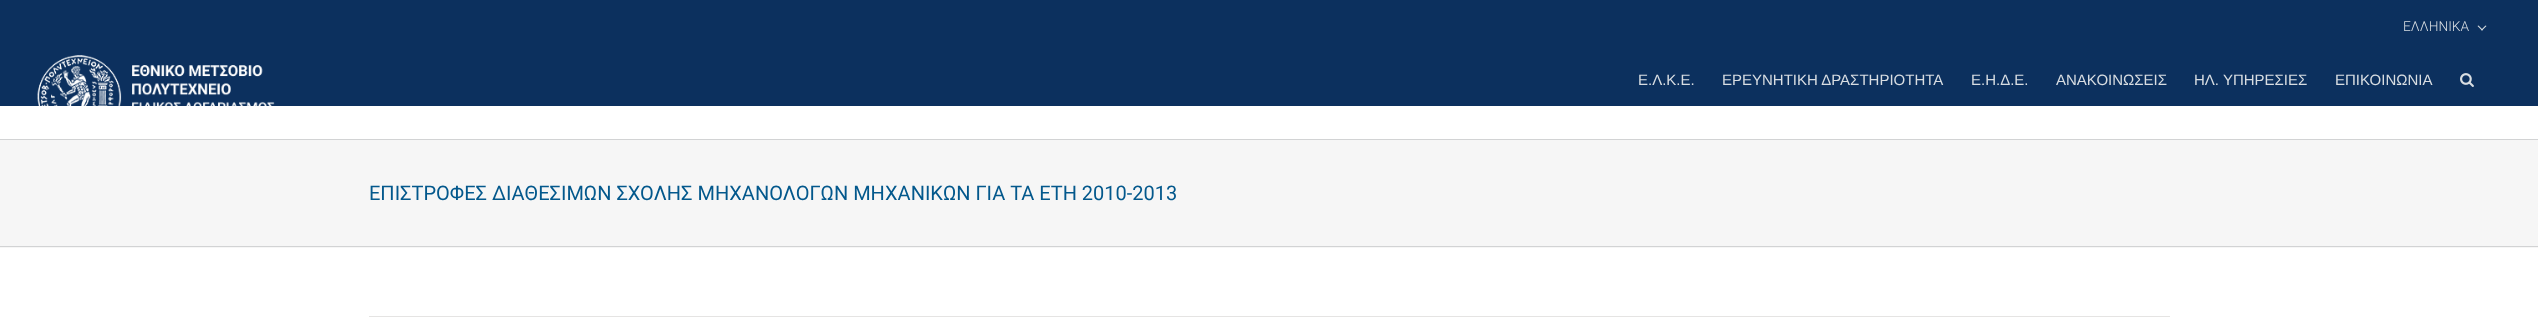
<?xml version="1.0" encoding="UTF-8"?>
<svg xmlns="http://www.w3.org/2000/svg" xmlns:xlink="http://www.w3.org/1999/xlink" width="2538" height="329">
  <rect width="100%" height="100%" fill="#ffffff" />
  <rect width="2538" height="106" fill="#0c305e" />
  <path d="M 2485.5 25.5 l 1 0.5 l -4.5 4.5 l -1 -0.5 z" fill="#d8dde2" />
  <path d="M 2478.5 25.5 l 4.5 4.5 l -1 0.5 l -4.5 -4.5 z" fill="#d8dde2" />
  <image x="37" y="55" width="238" height="51" xlink:href="image1.png" />
  <image x="2460" y="73" width="14" height="14" xlink:href="image2.png" />
  <rect y="140" width="2538" height="108" fill="#f6f6f6" />
  <rect y="139" width="2538" height="1" fill="#d2d3d4" />
  <rect y="246" width="2538" height="1" fill="#d2d3d4" />
  <rect x="369" y="316" width="1801" height="1" fill="#e5e4e3" />
  <text x="2403" y="31" style="font-family: Roboto; font-size: 13.75px; font-weight: 300; fill: #d8dde2">ΕΛΛΗΝΙΚΑ</text>
  <text x="1638" y="85" style="font-family: Liberation Sans; font-size: 15px; fill: #d8dde2">Ε.Λ.Κ.Ε.</text>
  <text x="1722" y="85" style="font-family: Liberation Sans; font-size: 15px; fill: #d8dde2">ΕΡΕΥΝΗΤΙΚΗ ΔΡΑΣΤΗΡΙΟΤΗΤΑ</text>
  <text x="1971" y="85" style="font-family: Liberation Sans; font-size: 15px; fill: #d8dde2">Ε.Η.Δ.Ε.</text>
  <text x="2056" y="85" style="font-family: Liberation Sans; font-size: 15px; fill: #d8dde2">ΑΝΑΚΟΙΝΩΣΕΙΣ</text>
  <text x="2194" y="85" style="font-family: Liberation Sans; font-size: 15px; fill: #d8dde2">ΗΛ. ΥΠΗΡΕΣΙΕΣ</text>
  <text x="2335" y="85" style="font-family: Liberation Sans; font-size: 15px; fill: #d8dde2">ΕΠΙΚΟΙΝΩΝΙΑ</text>
  <text x="369" y="200" style="font-family: Roboto; font-size: 20px; fill: #03588c">ΕΠΙΣΤΡΟΦΕΣ ΔΙΑΘΕΣΙΜΩΝ ΣΧΟΛΗΣ ΜΗΧΑΝΟΛΟΓΩΝ ΜΗΧΑΝΙΚΩΝ ΓΙΑ ΤΑ ΕΤΗ 2010-2013</text>
</svg>
